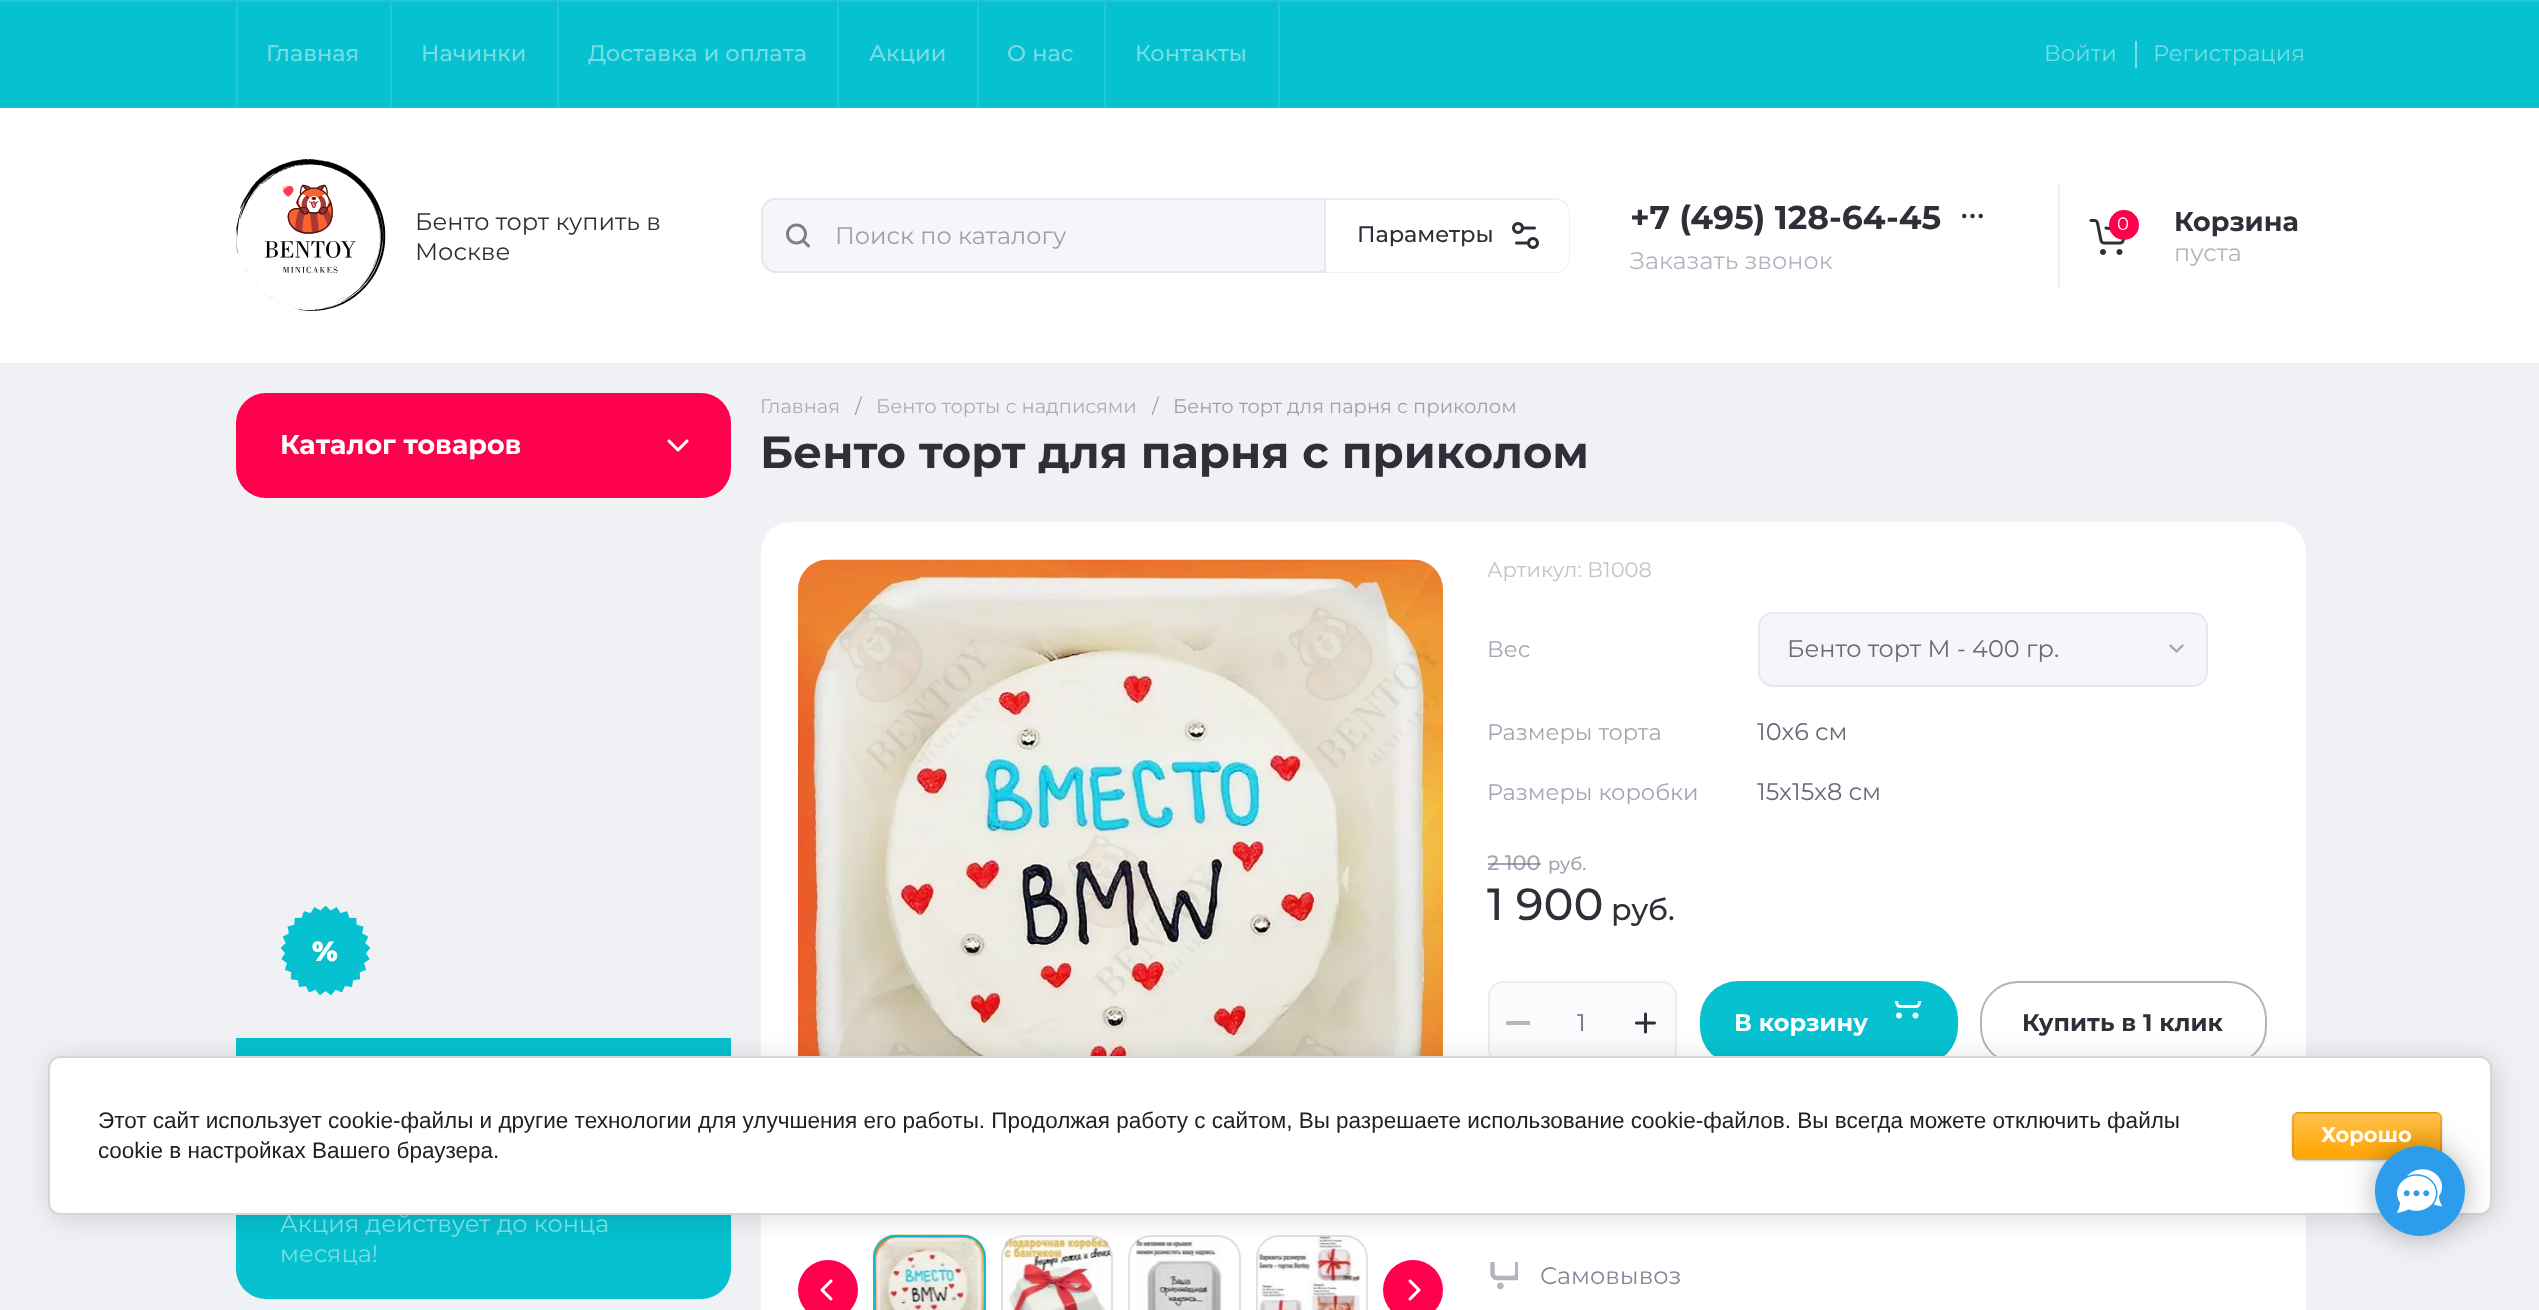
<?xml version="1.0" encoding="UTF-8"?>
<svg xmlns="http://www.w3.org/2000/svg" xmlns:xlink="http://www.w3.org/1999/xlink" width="2539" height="1310">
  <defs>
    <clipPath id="clip1"><rect x="2292" y="1112" width="150" height="48" rx="6" /></clipPath>
    <linearGradient id="g1" gradientUnits="userSpaceOnUse" x1="2367" y1="1068" x2="2367" y2="1113"><stop offset="0" stop-color="#ffc14e" /><stop offset="1" stop-color="#ffa601" /></linearGradient>
    <linearGradient id="g2" gradientUnits="userSpaceOnUse" x1="2367" y1="1113" x2="2367" y2="1158"><stop offset="0" stop-color="#ffc14e" /><stop offset="1" stop-color="#ffa601" /></linearGradient>
    <linearGradient id="g3" gradientUnits="userSpaceOnUse" x1="2367" y1="1158" x2="2367" y2="1203"><stop offset="0" stop-color="#ffc14e" /><stop offset="1" stop-color="#ffa601" /></linearGradient>
  </defs>
  <rect width="100%" height="100%" fill="#f0f1f4" />
  <rect y="2" width="2539" height="105" fill="#06c1cf" />
  <rect y="107" width="2539" height="1" fill="#1fc7d4" />
  <rect width="2539" height="2" fill="#1fc7d4" />
  <rect x="390" y="2" width="2" height="105" fill="#1fc7d4" />
  <rect x="236" y="2" width="2" height="105" fill="#1fc7d4" />
  <rect x="557" y="2" width="2" height="105" fill="#1fc7d4" />
  <rect x="837" y="2" width="2" height="105" fill="#1fc7d4" />
  <rect x="977" y="2" width="2" height="105" fill="#1fc7d4" />
  <rect x="1104" y="2" width="2" height="105" fill="#1fc7d4" />
  <rect x="1278" y="2" width="2" height="105" fill="#1fc7d4" />
  <rect x="2135" y="41" width="2" height="27" fill="#76dde5" />
  <rect y="108" width="2539" height="255" fill="#ffffff" />
  <image x="236" y="159" width="150" height="153" xlink:href="image1.png" />
  <path d="M 776 198 h 550 v 75 h -550 c -8.5 0 -15 -6.5 -15 -15 v -45 c 0 -8.5 6.5 -15 15 -15 z" fill="#f5f6f9" />
  <path d="M 776 199 h 549 v 73 h -549 c -7.5 0 -14 -6.5 -14 -14 v -45 c 0 -7.5 6.5 -14 14 -14 z" fill="none" stroke="#b1b2c7" stroke-opacity="0.2" stroke-width="2" />
  <image x="786" y="223" width="24" height="25" xlink:href="image2.png" />
  <path d="M 1326 198 h 230 c 8 0 14 7 14 15 v 45 c 0 8 -6 15 -14 15 h -230 z m 0 2 h 230 c 7 0 13 6 13 13 v 45 c 0 7 -6 14 -13 14 h -230 z" fill="#eff0f4" fill-rule="evenodd" />
  <image x="1512" y="222" width="27" height="27" xlink:href="image3.png" />
  <image x="1962" y="213" width="21" height="6" xlink:href="image4.png" />
  <rect x="2058" y="183" width="2" height="105" fill="#eff0f4" />
  <image x="2089" y="219" width="36" height="36" xlink:href="image5.png" />
  <circle cx="2124" cy="225" r="15" fill="#ff004c" />
  <rect x="236" y="393" width="495" height="105" rx="30" fill="#ff004c" />
  <image x="667" y="439" width="22" height="13" xlink:href="image6.png" />
  <image x="281" y="905" width="90" height="91" xlink:href="image7.png" />
  <path d="M 236 1038 h 495 v 231 c 0 16.5 -13.5 30 -30 30 h -435 c -16.5 0 -30 -13.5 -30 -30 z" fill="#06c1cf" />
  <rect x="761" y="522" width="1545" height="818" rx="30" fill="#ffffff" />
  <image x="798" y="559" width="645" height="497" xlink:href="image8.png" />
  <circle cx="828" cy="1290" r="30" fill="#ff004c" />
  <image x="820" y="1279" width="13" height="22" xlink:href="image9.png" />
  <circle cx="1413" cy="1290" r="30" fill="#ff004c" />
  <image x="1408" y="1279" width="13" height="22" xlink:href="image10.png" />
  <image x="873" y="1234" width="113" height="76" xlink:href="image11.png" />
  <rect x="874" y="1236" width="111" height="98" rx="22" fill="none" stroke="#06c1d0" stroke-width="2" />
  <image x="1001" y="1235" width="112" height="75" xlink:href="image12.png" />
  <rect x="1002" y="1236" width="110" height="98" rx="22" fill="none" stroke="#b1b2c7" stroke-opacity="0.4" stroke-width="2" />
  <image x="1135" y="1240" width="87" height="70" xlink:href="image13.png" />
  <rect x="1129" y="1236" width="111" height="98" rx="22" fill="none" stroke="#b1b2c7" stroke-opacity="0.4" stroke-width="2" />
  <image x="1255" y="1235" width="106" height="75" xlink:href="image14.png" />
  <rect x="1257" y="1236" width="110" height="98" rx="22" fill="none" stroke="#b1b2c7" stroke-opacity="0.4" stroke-width="2" />
  <rect x="1758" y="612" width="450" height="75" rx="15" fill="#f5f6f9" />
  <rect x="1759" y="613" width="448" height="73" rx="14" fill="none" stroke="#b1b2c7" stroke-opacity="0.2" stroke-width="2" />
  <image x="2169" y="644" width="15" height="9" xlink:href="image15.png" />
  <rect x="1489" y="982" width="187" height="82" rx="14" fill="#fafbfc" stroke="#ebecf1" stroke-width="2" />
  <rect x="1506" y="1021" width="24" height="4" fill="#b6b7ba" />
  <image x="1635" y="1012" width="21" height="22" xlink:href="image16.png" />
  <rect x="1700" y="981" width="258" height="84" rx="38" fill="#06c1d0" />
  <image x="1894" y="1001" width="28" height="18" xlink:href="image17.png" />
  <rect x="1981" y="982" width="285" height="82" rx="37" fill="none" stroke="#b3b4bf" stroke-width="2" />
  <image x="1490" y="1262" width="28" height="28" xlink:href="image18.png" />
  <rect x="51" y="1059" width="2444" height="159" rx="12" fill="#000000" fill-opacity="0.14" filter="blur(13.5px)" />
  <text x="266" y="61" style="font-family: Montserrat; font-size: 22.5px; font-weight: 500; fill: #76dde5">Главная</text>
  <text x="421" y="61" style="font-family: Montserrat; font-size: 22.5px; font-weight: 500; fill: #76dde5">Начинки</text>
  <text x="588" y="61" style="font-family: Montserrat; font-size: 22.5px; font-weight: 500; fill: #76dde5">Доставка и оплата</text>
  <text x="869" y="61" style="font-family: Montserrat; font-size: 22.5px; font-weight: 500; fill: #76dde5">Акции</text>
  <text x="1007" y="61" style="font-family: Montserrat; font-size: 22.5px; font-weight: 500; fill: #76dde5">О нас</text>
  <text x="1135" y="61" style="font-family: Montserrat; font-size: 22.5px; font-weight: 500; fill: #76dde5">Контакты</text>
  <text x="2044" y="61" style="font-family: Montserrat; font-size: 22.5px; fill: #76dde5">Войти</text>
  <text x="2153" y="61" style="font-family: Montserrat; font-size: 22.5px; fill: #76dde5">Регистрация</text>
  <text x="415" y="230" style="font-family: Montserrat; font-size: 24px; fill: #2e2f38">Бенто торт купить в</text>
  <text x="415" y="260" style="font-family: Montserrat; font-size: 24px; fill: #2e2f38">Москве</text>
  <text x="835" y="244" style="font-family: Montserrat; font-size: 24px; fill: #9e9fad">Поиск по каталогу</text>
  <text x="1357" y="242" style="font-family: Montserrat; font-size: 22.5px; font-weight: 500; fill: #2e2f38">Параметры</text>
  <text x="1630" y="229" style="font-family: Montserrat; font-size: 33px; font-weight: bold; fill: #2e2f38">+7 (495) 128-64-45</text>
  <text x="1630" y="269" style="font-family: Montserrat; font-size: 24px; fill: #b3b4bf">Заказать звонок</text>
  <text x="2117" y="230" style="font-family: Montserrat; font-size: 18px; fill: #ffffff">0</text>
  <text x="2174" y="231" style="font-family: Montserrat; font-size: 27px; font-weight: bold; fill: #2e2f38">Корзина</text>
  <text x="2174" y="261" style="font-family: Montserrat; font-size: 24px; fill: #b3b4bf">пуста</text>
  <text x="280" y="454" style="font-family: Montserrat; font-size: 27px; font-weight: bold; fill: #ffffff">Каталог товаров</text>
  <text x="312" y="961" style="font-family: Montserrat; font-size: 28px; font-weight: 900; fill: #ffffff">%</text>
  <text x="280" y="1232" style="font-family: Montserrat; font-size: 24px; fill: #76dde5">Акция действует до конца</text>
  <text x="280" y="1262" style="font-family: Montserrat; font-size: 24px; fill: #76dde5">месяца!</text>
  <text x="760" y="413" style="font-family: Montserrat; font-size: 19.5px; fill: #acadb9">Главная</text>
  <text x="855" y="413" style="font-family: Montserrat; font-size: 19.5px; fill: #9e9fad">/</text>
  <text x="876" y="413" style="font-family: Montserrat; font-size: 19.5px; fill: #acadb9">Бенто торты с надписями</text>
  <text x="1152" y="413" style="font-family: Montserrat; font-size: 19.5px; fill: #9e9fad">/</text>
  <text x="1173" y="413" style="font-family: Montserrat; font-size: 19.5px; fill: #9e9fad">Бенто торт для парня с приколом</text>
  <text x="760" y="468" style="font-family: Montserrat; font-size: 45px; font-weight: bold; fill: #2e2f38">Бенто торт для парня с приколом</text>
  <text x="1487" y="577" style="font-family: Montserrat; font-size: 21px; fill: #c2c3cb">Артикул: B1008</text>
  <text x="1487" y="657" style="font-family: Montserrat; font-size: 22.5px; fill: #a4a5b2">Вес</text>
  <text x="1787" y="657" style="font-family: Montserrat; font-size: 24px; fill: #6a6b72">Бенто торт M - 400 гр.</text>
  <text x="1487" y="740" style="font-family: Montserrat; font-size: 22.5px; fill: #a4a5b2">Размеры торта</text>
  <text x="1757" y="740" style="font-family: Montserrat; font-size: 24px; fill: #67697e">10х6 см</text>
  <text x="1487" y="800" style="font-family: Montserrat; font-size: 22.5px; fill: #a4a5b2">Размеры коробки</text>
  <text x="1757" y="800" style="font-family: Montserrat; font-size: 24px; fill: #67697e">15x15x8 см</text>
  <text x="1487" y="870" style="font-family: Montserrat; font-size: 21px; font-weight: 500; fill: #a4a5b2">2 100</text>
  <rect x="1488" y="863" width="53" height="2" fill="#67697e" fill-opacity="0.6" />
  <text x="1548" y="870" style="font-family: Montserrat; font-size: 18px; font-weight: 500; fill: #a4a5b2">руб.</text>
  <text x="1487" y="920" style="font-family: Montserrat; font-size: 45px; font-weight: 500; fill: #2e2f38">1 900</text>
  <text x="1611" y="920" style="font-family: Montserrat; font-size: 30px; font-weight: 500; fill: #2e2f38">руб.</text>
  <text x="1577" y="1031" style="font-family: Montserrat; font-size: 24px; fill: #67697e">1</text>
  <text x="1734" y="1031" style="font-family: Montserrat; font-size: 24px; font-weight: bold; fill: #ffffff">В корзину</text>
  <text x="2022" y="1031" style="font-family: Montserrat; font-size: 24px; font-weight: bold; fill: #2e2f38">Купить в 1 клик</text>
  <text x="1540" y="1284" style="font-family: Montserrat; font-size: 24px; fill: #858798">Самовывоз</text>
  <rect x="49" y="1057" width="2442" height="157" rx="11" fill="#ffffff" stroke="#d6d6d6" stroke-width="2" />
  <text x="98" y="1128" style="font-family: Liberation Sans; font-size: 22.5px; fill: #212121">Этот сайт использует cookie-файлы и другие технологии для улучшения его работы. Продолжая работу с сайтом, Вы разрешаете использование cookie-файлов. Вы всегда можете отключить файлы</text>
  <text x="98" y="1158" style="font-family: Liberation Sans; font-size: 22.5px; fill: #212121">cookie в настройках Вашего браузера.</text>
  <rect x="2292" y="1113" width="150" height="48" rx="6" fill="#000000" fill-opacity="0.2" filter="blur(1px)" />
  <g clip-path="url(#clip1)">
    <rect x="2292" y="1112" width="150" height="1" fill="url(#g1)" />
    <rect x="2292" y="1113" width="150" height="45" fill="url(#g2)" />
    <rect x="2292" y="1158" width="98" height="2" fill="url(#g3)" />
  </g>
  <rect x="2293" y="1113" width="148" height="46" rx="5" fill="none" stroke="#000000" stroke-opacity="0.1" stroke-width="2" />
  <rect x="2375" y="1146" width="90" height="90" rx="45" fill="#000000" fill-opacity="0.3" filter="blur(15px)" />
  <text x="2321" y="1142" style="font-family: Montserrat; font-size: 21px; font-weight: bold; fill: #ffffff">Хорошо</text>
  <circle cx="2420" cy="1191" r="45" fill="#2d9ced" />
  <image x="2397" y="1169" width="45" height="44" xlink:href="image19.png" />
</svg>
